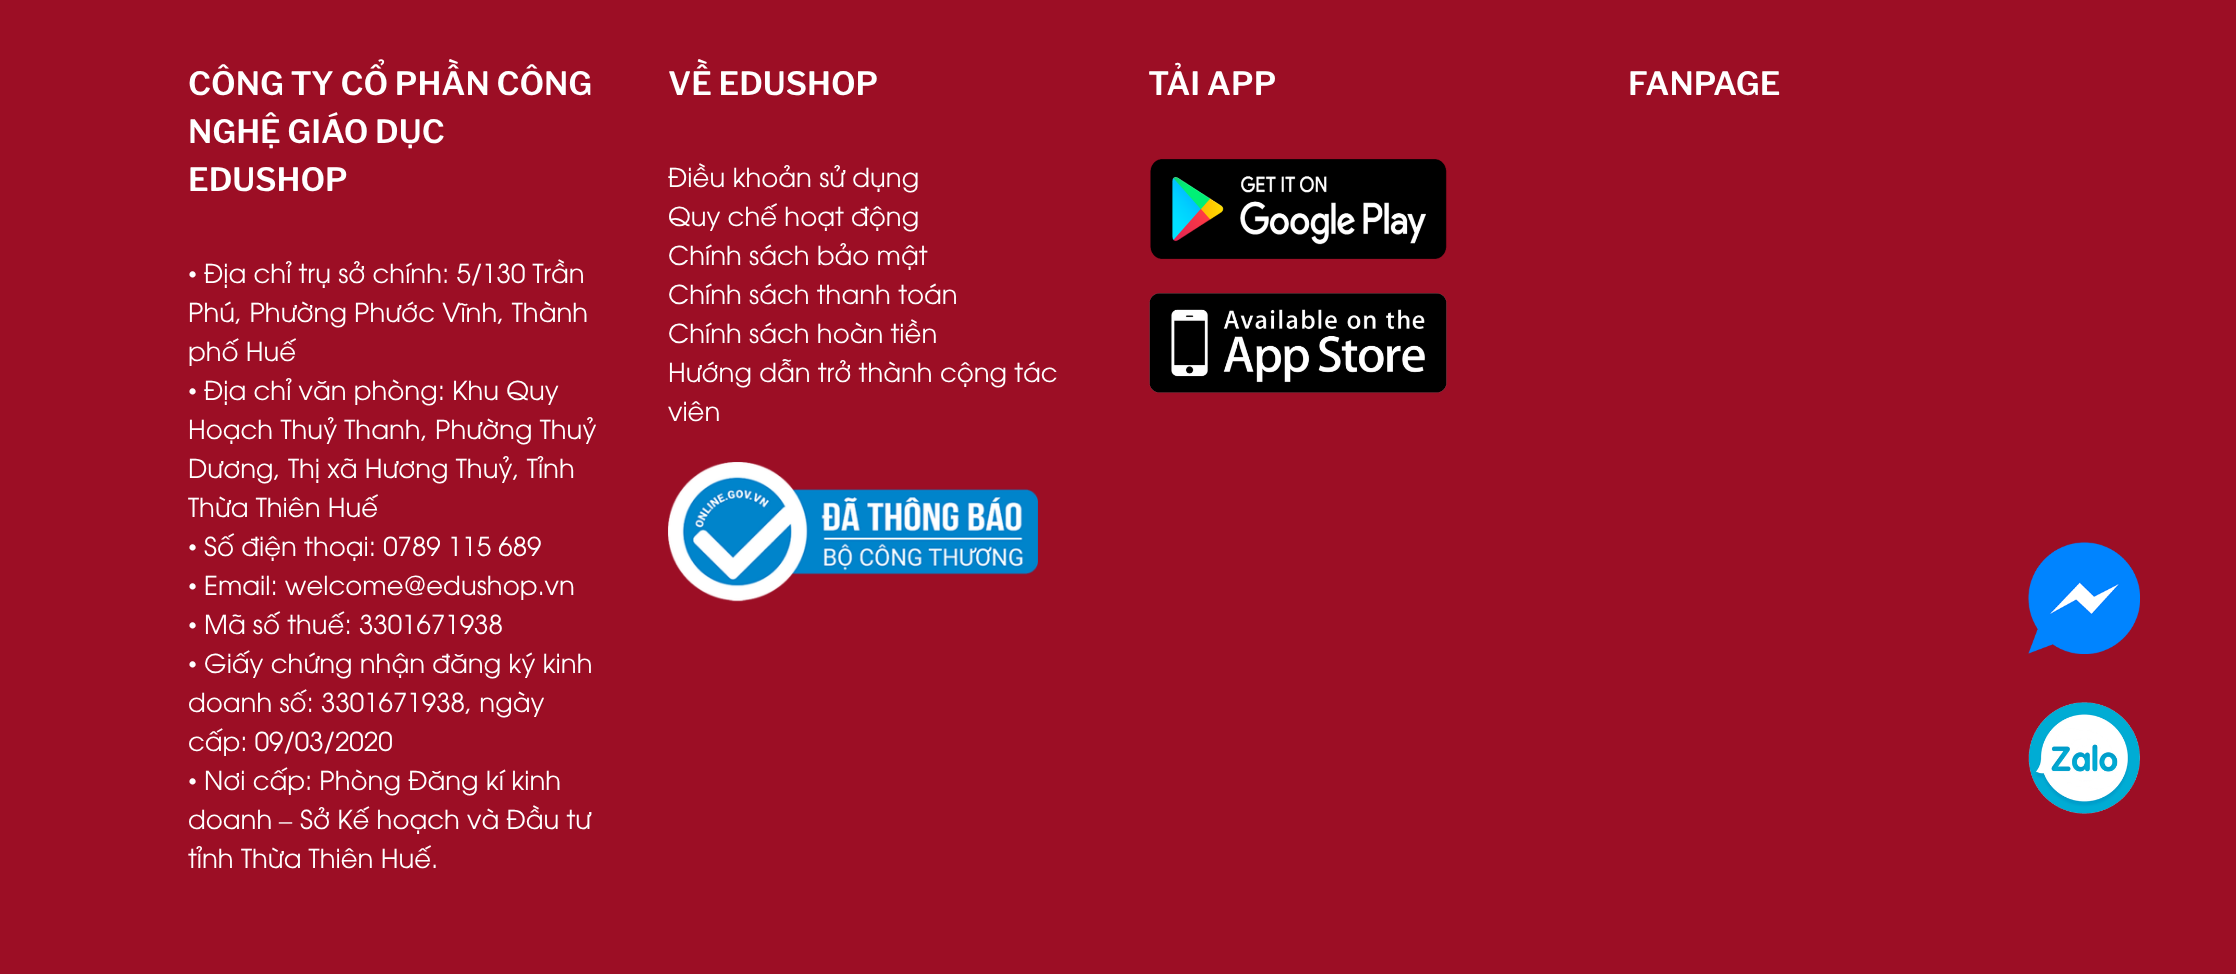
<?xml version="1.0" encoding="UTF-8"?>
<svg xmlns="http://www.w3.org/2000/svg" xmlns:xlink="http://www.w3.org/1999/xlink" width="2236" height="974">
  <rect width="100%" height="100%" fill="#9c0e25" />
  <image x="668" y="462" width="370" height="140" xlink:href="image1.png" />
  <image x="1150" y="159" width="297" height="100" xlink:href="image2.png" />
  <image x="1149" y="293" width="298" height="100" xlink:href="image3.png" />
  <image x="2028" y="542" width="112" height="112" xlink:href="image4.png" />
  <image x="2028" y="702" width="112" height="112" xlink:href="image5.png" />
  <text x="188" y="95" style="font-family: Libre Franklin; font-size: 32px; font-weight: 600; fill: #ffffff">CÔNG TY CỔ PHẦN CÔNG</text>
  <text x="188" y="143" style="font-family: Libre Franklin; font-size: 32px; font-weight: 600; fill: #ffffff">NGHỆ GIÁO DỤC</text>
  <text x="188" y="191" style="font-family: Libre Franklin; font-size: 32px; font-weight: 600; fill: #ffffff">EDUSHOP</text>
  <text x="188" y="283" style="font-family: Liberation Serif; font-size: 26px; fill: #ffffff">•</text>
  <text x="204" y="283" style="font-family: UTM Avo; font-size: 26px; fill: #ffffff">Địa chỉ trụ sở chính: 5/130 Trần</text>
  <text x="188" y="322" style="font-family: UTM Avo; font-size: 26px; fill: #ffffff">Phú, Phường Phước Vĩnh, Thành</text>
  <text x="188" y="361" style="font-family: UTM Avo; font-size: 26px; fill: #ffffff">phố Huế</text>
  <text x="188" y="400" style="font-family: Liberation Serif; font-size: 26px; fill: #ffffff">•</text>
  <text x="204" y="400" style="font-family: UTM Avo; font-size: 26px; fill: #ffffff">Địa chỉ văn phòng: Khu Quy</text>
  <text x="188" y="439" style="font-family: UTM Avo; font-size: 26px; fill: #ffffff">Hoạch Thuỷ Thanh, Phường Thuỷ</text>
  <text x="188" y="478" style="font-family: UTM Avo; font-size: 26px; fill: #ffffff">Dương, Thị xã Hương Thuỷ, Tỉnh</text>
  <text x="188" y="517" style="font-family: UTM Avo; font-size: 26px; fill: #ffffff">Thừa Thiên Huế</text>
  <text x="188" y="556" style="font-family: Liberation Serif; font-size: 26px; fill: #ffffff">•</text>
  <text x="204" y="556" style="font-family: UTM Avo; font-size: 26px; fill: #ffffff">Số điện thoại: 0789 115 689</text>
  <text x="188" y="595" style="font-family: Liberation Serif; font-size: 26px; fill: #ffffff">•</text>
  <text x="204" y="595" style="font-family: UTM Avo; font-size: 26px; fill: #ffffff">Email: welcome@edushop.vn</text>
  <text x="188" y="634" style="font-family: Liberation Serif; font-size: 26px; fill: #ffffff">•</text>
  <text x="204" y="634" style="font-family: UTM Avo; font-size: 26px; fill: #ffffff">Mã số thuế: 3301671938</text>
  <text x="188" y="673" style="font-family: Liberation Serif; font-size: 26px; fill: #ffffff">•</text>
  <text x="204" y="673" style="font-family: UTM Avo; font-size: 26px; fill: #ffffff">Giấy chứng nhận đăng ký kinh</text>
  <text x="188" y="712" style="font-family: UTM Avo; font-size: 26px; fill: #ffffff">doanh số: 3301671938, ngày</text>
  <text x="188" y="751" style="font-family: UTM Avo; font-size: 26px; fill: #ffffff">cấp: 09/03/2020</text>
  <text x="188" y="790" style="font-family: Liberation Serif; font-size: 26px; fill: #ffffff">•</text>
  <text x="204" y="790" style="font-family: UTM Avo; font-size: 26px; fill: #ffffff">Nơi cấp: Phòng Đăng kí kinh</text>
  <text x="188" y="829" style="font-family: UTM Avo; font-size: 26px; fill: #ffffff">doanh</text>
  <text x="279" y="829" style="font-family: Liberation Serif; font-size: 26px; fill: #ffffff">–</text>
  <text x="300" y="829" style="font-family: UTM Avo; font-size: 26px; fill: #ffffff">Sở Kế hoạch và Đầu tư</text>
  <text x="188" y="868" style="font-family: UTM Avo; font-size: 26px; fill: #ffffff">tỉnh Thừa Thiên Huế.</text>
  <text x="668" y="95" style="font-family: Libre Franklin; font-size: 32px; font-weight: 600; fill: #ffffff">VỀ EDUSHOP</text>
  <text x="668" y="187" style="font-family: UTM Avo; font-size: 26px; fill: #ffffff">Điều khoản sử dụng</text>
  <text x="668" y="226" style="font-family: UTM Avo; font-size: 26px; fill: #ffffff">Quy chế hoạt động</text>
  <text x="668" y="265" style="font-family: UTM Avo; font-size: 26px; fill: #ffffff">Chính sách bảo mật</text>
  <text x="668" y="304" style="font-family: UTM Avo; font-size: 26px; fill: #ffffff">Chính sách thanh toán</text>
  <text x="668" y="343" style="font-family: UTM Avo; font-size: 26px; fill: #ffffff">Chính sách hoàn tiền</text>
  <text x="668" y="382" style="font-family: UTM Avo; font-size: 26px; fill: #ffffff">Hướng dẫn trở thành cộng tác</text>
  <text x="668" y="421" style="font-family: UTM Avo; font-size: 26px; fill: #ffffff">viên</text>
  <text x="1148" y="95" style="font-family: Libre Franklin; font-size: 32px; font-weight: 600; fill: #ffffff">TẢI APP</text>
  <text x="1628" y="95" style="font-family: Libre Franklin; font-size: 32px; font-weight: 600; fill: #ffffff">FANPAGE</text>
</svg>
